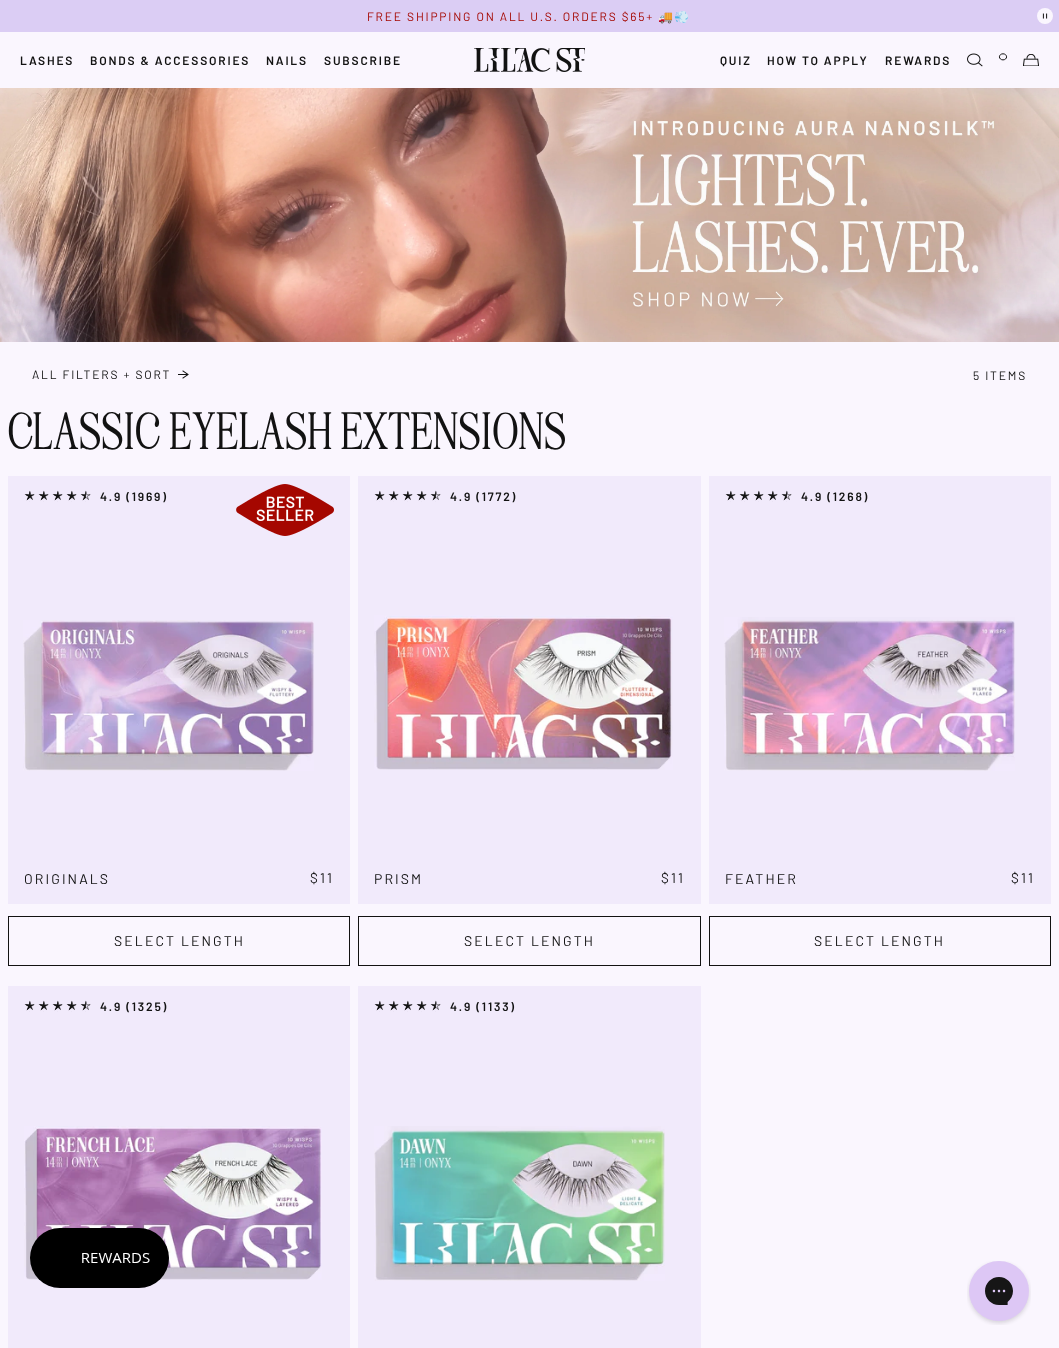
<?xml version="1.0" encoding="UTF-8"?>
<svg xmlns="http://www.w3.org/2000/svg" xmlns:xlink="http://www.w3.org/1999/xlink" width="1059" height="1348">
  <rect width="100%" height="100%" fill="#faf6fe" />
  <rect width="1059" height="32" fill="#dbcdf4" />
  <circle cx="1045" cy="16" r="8" fill="#faf6fe" />
  <image x="1042" y="13" width="6" height="6" xlink:href="image1.png" />
  <image x="474" y="48" width="111" height="24" xlink:href="image2.png" />
  <image x="967" y="53" width="16" height="14" xlink:href="image3.png" />
  <image x="998" y="53" width="10" height="8" xlink:href="image4.png" />
  <image x="1023" y="54" width="16" height="12" xlink:href="image5.png" />
  <image x="0" y="88" width="1059" height="254" xlink:href="image6.png" />
  <image x="178" y="370" width="11" height="9" xlink:href="image7.png" />
  <rect x="8" y="476" width="342" height="428" fill="#f1eafb" />
  <image x="24" y="490" width="11" height="12" xlink:href="image8.png" />
  <image x="38" y="490" width="11" height="12" xlink:href="image8.png" />
  <image x="52" y="490" width="11" height="12" xlink:href="image8.png" />
  <image x="66" y="490" width="11" height="12" xlink:href="image8.png" />
  <image x="80" y="490" width="11" height="12" xlink:href="image9.png" />
  <image x="236" y="484" width="98" height="52" xlink:href="image10.png" />
  <image x="23" y="620" width="291" height="151" xlink:href="image11.png" />
  <rect x="8.5" y="916.5" width="341" height="49" fill="none" stroke="#121212" />
  <rect x="358" y="476" width="343" height="428" fill="#f1eafb" />
  <image x="374" y="490" width="11" height="12" xlink:href="image8.png" />
  <image x="388" y="490" width="11" height="12" xlink:href="image8.png" />
  <image x="402" y="490" width="11" height="12" xlink:href="image8.png" />
  <image x="416" y="490" width="11" height="12" xlink:href="image8.png" />
  <image x="430" y="490" width="11" height="12" xlink:href="image9.png" />
  <image x="374" y="615" width="299" height="155" xlink:href="image12.png" />
  <rect x="358.5" y="916.5" width="342" height="49" fill="none" stroke="#121212" />
  <rect x="709" y="476" width="342" height="428" fill="#f1eafb" />
  <image x="725" y="490" width="11" height="12" xlink:href="image8.png" />
  <image x="739" y="490" width="11" height="12" xlink:href="image8.png" />
  <image x="753" y="490" width="11" height="12" xlink:href="image8.png" />
  <image x="767" y="490" width="11" height="12" xlink:href="image8.png" />
  <image x="781" y="490" width="11" height="12" xlink:href="image9.png" />
  <image x="724" y="617" width="291" height="154" xlink:href="image13.png" />
  <rect x="709.5" y="916.5" width="341" height="49" fill="none" stroke="#121212" />
  <rect x="8" y="986" width="342" height="362" fill="#f1eafb" />
  <image x="24" y="1000" width="11" height="12" xlink:href="image8.png" />
  <image x="38" y="1000" width="11" height="12" xlink:href="image8.png" />
  <image x="52" y="1000" width="11" height="12" xlink:href="image8.png" />
  <image x="66" y="1000" width="11" height="12" xlink:href="image8.png" />
  <image x="80" y="1000" width="11" height="12" xlink:href="image9.png" />
  <image x="24" y="1126" width="298" height="154" xlink:href="image14.png" />
  <rect x="358" y="986" width="343" height="362" fill="#f1eafb" />
  <image x="374" y="1000" width="11" height="12" xlink:href="image8.png" />
  <image x="388" y="1000" width="11" height="12" xlink:href="image8.png" />
  <image x="402" y="1000" width="11" height="12" xlink:href="image8.png" />
  <image x="416" y="1000" width="11" height="12" xlink:href="image8.png" />
  <image x="430" y="1000" width="11" height="12" xlink:href="image9.png" />
  <image x="374" y="1126" width="291" height="155" xlink:href="image15.png" />
  <rect x="30" y="1228" width="139" height="60" rx="30" fill="#000000" />
  <image x="82" y="1253" width="68" height="10" xlink:href="image16.png" />
  <image x="967" y="1261" width="64" height="64" xlink:href="image17.png" />
  <text x="367" y="21" style="font-family: Barlow; font-size: 12px; letter-spacing: 1.8px; fill: #a50700">FREE SHIPPING ON ALL U.S. ORDERS $65+</text>
  <text x="658" y="21" style="font-family: Noto Color Emoji; font-size: 12px; letter-spacing: 1.8px; fill: #a50700">🚚💨</text>
  <text x="20" y="65" style="font-family: Barlow; font-size: 12px; font-weight: 600; letter-spacing: 1.8px; fill: #121212">LASHES</text>
  <text x="90" y="65" style="font-family: Barlow; font-size: 12px; font-weight: 600; letter-spacing: 1.8px; fill: #121212">BONDS &amp; ACCESSORIES</text>
  <text x="266" y="65" style="font-family: Barlow; font-size: 12px; font-weight: 600; letter-spacing: 1.8px; fill: #121212">NAILS</text>
  <text x="324" y="65" style="font-family: Barlow; font-size: 12px; font-weight: 600; letter-spacing: 1.8px; fill: #121212">SUBSCRIBE</text>
  <text x="720" y="65" style="font-family: Barlow; font-size: 12px; font-weight: 600; letter-spacing: 1.8px; fill: #121212">QUIZ</text>
  <text x="767" y="65" style="font-family: Barlow; font-size: 12px; font-weight: 600; letter-spacing: 1.8px; fill: #121212">HOW TO APPLY</text>
  <text x="885" y="65" style="font-family: Barlow; font-size: 12px; font-weight: 600; letter-spacing: 1.8px; fill: #121212">REWARDS</text>
  <text x="32" y="379" style="font-family: Barlow; font-size: 12px; letter-spacing: 1.8px; fill: #121212">ALL FILTERS + SORT</text>
  <text x="973" y="380" style="font-family: Barlow; font-size: 12px; letter-spacing: 1.8px; fill: #121212">5 ITEMS</text>
  <text x="8" y="449" style="font-family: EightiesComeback; font-size: 48px; letter-spacing: 1.2px; fill: #121212">CLASSIC EYELASH EXTENSIONS</text>
  <text x="100" y="501" style="font-family: Barlow; font-size: 12px; font-weight: 600; letter-spacing: 1.8px; fill: #121212">4.9 (1969)</text>
  <text x="24" y="884" style="font-family: Barlow; font-size: 14px; letter-spacing: 2.1px; fill: #121212">ORIGINALS</text>
  <text x="310" y="883" style="font-family: Barlow; font-size: 14px; letter-spacing: 2.1px; fill: #121212">$11</text>
  <text x="114" y="946" style="font-family: Barlow; font-size: 14px; letter-spacing: 2.1px; fill: #121212">SELECT LENGTH</text>
  <text x="450" y="501" style="font-family: Barlow; font-size: 12px; font-weight: 600; letter-spacing: 1.8px; fill: #121212">4.9 (1772)</text>
  <text x="374" y="884" style="font-family: Barlow; font-size: 14px; letter-spacing: 2.1px; fill: #121212">PRISM</text>
  <text x="661" y="883" style="font-family: Barlow; font-size: 14px; letter-spacing: 2.1px; fill: #121212">$11</text>
  <text x="464" y="946" style="font-family: Barlow; font-size: 14px; letter-spacing: 2.1px; fill: #121212">SELECT LENGTH</text>
  <text x="801" y="501" style="font-family: Barlow; font-size: 12px; font-weight: 600; letter-spacing: 1.8px; fill: #121212">4.9 (1268)</text>
  <text x="725" y="884" style="font-family: Barlow; font-size: 14px; letter-spacing: 2.1px; fill: #121212">FEATHER</text>
  <text x="1011" y="883" style="font-family: Barlow; font-size: 14px; letter-spacing: 2.1px; fill: #121212">$11</text>
  <text x="814" y="946" style="font-family: Barlow; font-size: 14px; letter-spacing: 2.1px; fill: #121212">SELECT LENGTH</text>
  <text x="100" y="1011" style="font-family: Barlow; font-size: 12px; font-weight: 600; letter-spacing: 1.8px; fill: #121212">4.9 (1325)</text>
  <text x="450" y="1011" style="font-family: Barlow; font-size: 12px; font-weight: 600; letter-spacing: 1.8px; fill: #121212">4.9 (1133)</text>
</svg>
